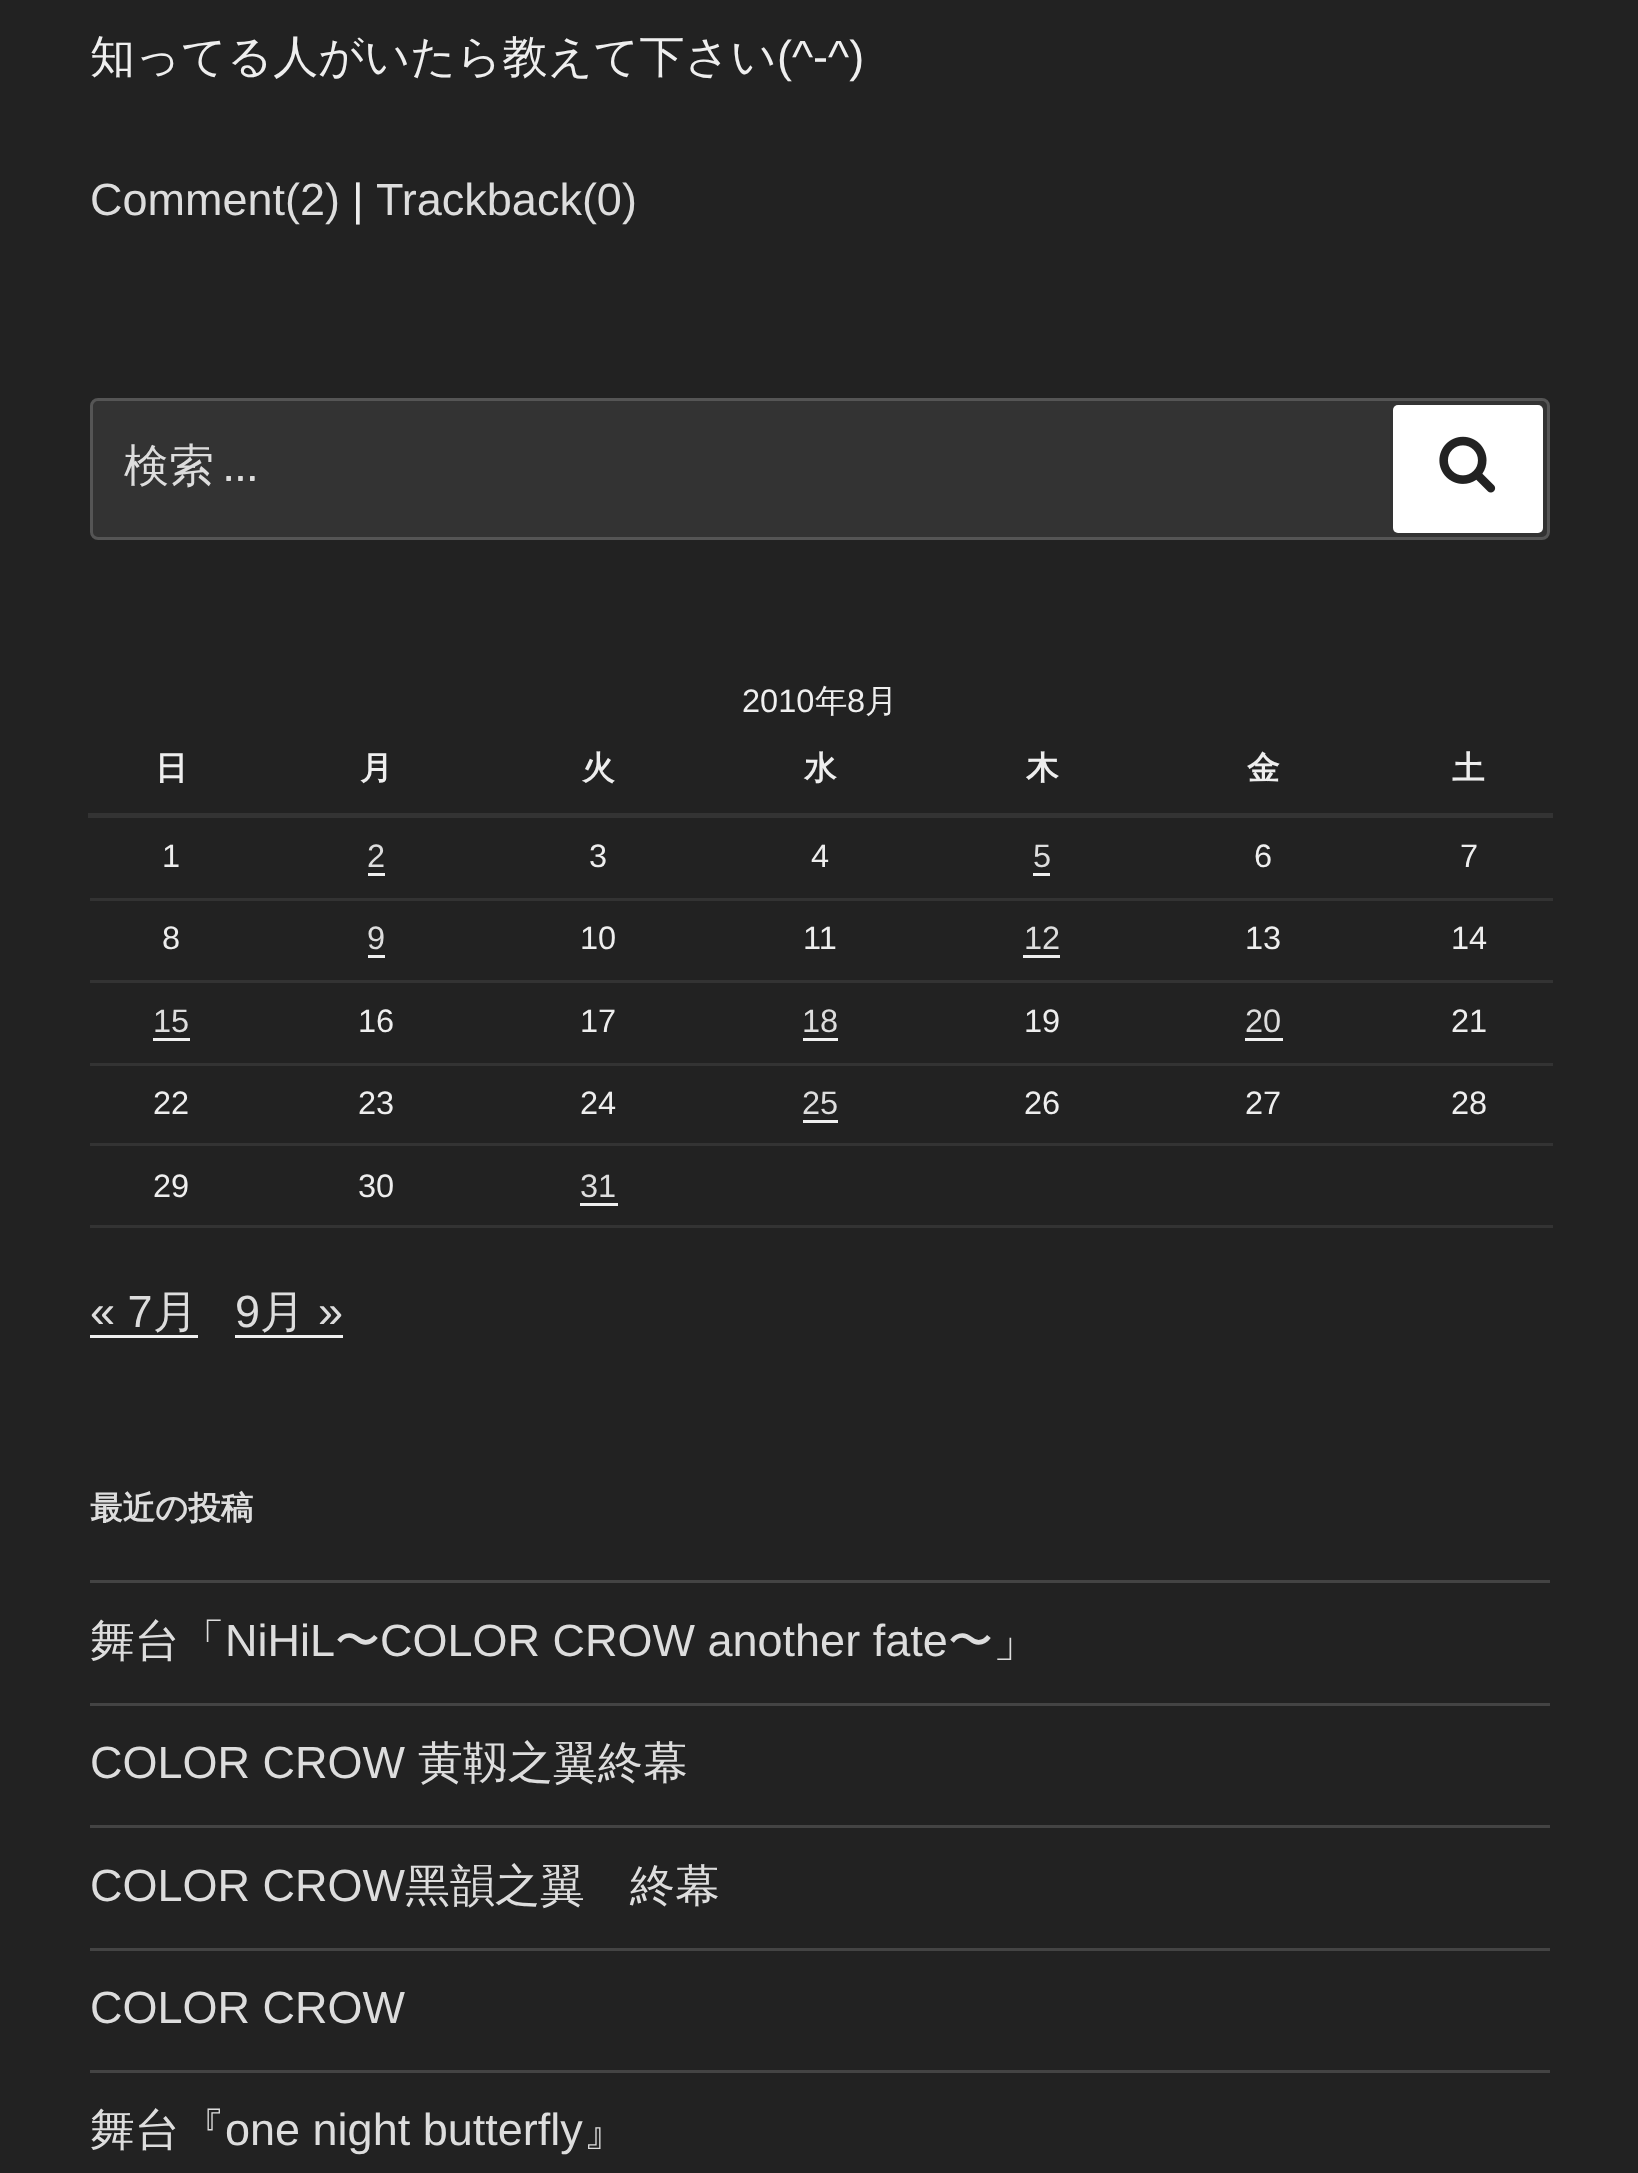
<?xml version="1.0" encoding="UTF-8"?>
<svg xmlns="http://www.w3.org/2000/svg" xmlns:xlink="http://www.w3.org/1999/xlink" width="1638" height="2173">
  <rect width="100%" height="100%" fill="#222222" />
  <rect x="91.5" y="399.5" width="1457" height="139" rx="6.5" fill="#333333" stroke="#555555" stroke-width="3" />
  <rect x="1393" y="405" width="150" height="128" rx="5" fill="#ffffff" />
  <image x="1439" y="436" width="57" height="57" xlink:href="image1.png" />
  <rect x="88" y="813" width="1465" height="5" fill="#333333" />
  <rect x="90" y="898" width="1463" height="3" fill="#333333" />
  <rect x="368" y="873" width="17" height="3" fill="#f0f0f0" />
  <rect x="1033" y="873" width="17" height="3" fill="#f0f0f0" />
  <rect x="90" y="980" width="1463" height="3" fill="#333333" />
  <rect x="368" y="955" width="17" height="3" fill="#f0f0f0" />
  <rect x="1023" y="955" width="37" height="3" fill="#f0f0f0" />
  <rect x="90" y="1063" width="1463" height="3" fill="#333333" />
  <rect x="153" y="1038" width="37" height="3" fill="#f0f0f0" />
  <rect x="803" y="1038" width="35" height="3" fill="#f0f0f0" />
  <rect x="1245" y="1038" width="38" height="3" fill="#f0f0f0" />
  <rect x="90" y="1143" width="1463" height="3" fill="#333333" />
  <rect x="803" y="1120" width="35" height="3" fill="#f0f0f0" />
  <rect x="90" y="1225" width="1463" height="3" fill="#333333" />
  <rect x="580" y="1203" width="38" height="3" fill="#f0f0f0" />
  <rect x="90" y="1335" width="108" height="3" fill="#f0f0f0" />
  <rect x="235" y="1335" width="108" height="3" fill="#f0f0f0" />
  <rect x="90" y="1580" width="1460" height="3" fill="#444444" />
  <rect x="90" y="1703" width="1460" height="3" fill="#444444" />
  <rect x="90" y="1825" width="1460" height="3" fill="#444444" />
  <rect x="90" y="1948" width="1460" height="3" fill="#444444" />
  <rect x="90" y="2070" width="1460" height="3" fill="#444444" />
  <text x="90" y="72" style="font-family: WenQuanYi Zen Hei; font-size: 45px; font-weight: 500; fill: #eeeeee">知ってる人がいたら教えて下さい</text>
  <text x="777" y="72" style="font-family: Liberation Sans; font-size: 45px; fill: #eeeeee">(^-^)</text>
  <text x="90" y="215" style="font-family: Liberation Sans; font-size: 45px; fill: #dddddd">Comment(2)</text>
  <text x="352" y="215" style="font-family: Liberation Sans; font-size: 45px; fill: #eeeeee">|</text>
  <text x="376" y="215" style="font-family: Liberation Sans; font-size: 45px; fill: #dddddd">Trackback(0)</text>
  <text x="124" y="481" style="font-family: WenQuanYi Zen Hei; font-size: 45px; font-weight: 500; fill: #dddddd">検索</text>
  <text x="224" y="481" style="font-family: Libre Franklin; font-size: 45px; fill: #dddddd">…</text>
  <text x="742" y="712" style="font-family: Liberation Sans; font-size: 32.5px; fill: #eeeeee">2010</text>
  <text x="815" y="712" style="font-family: WenQuanYi Zen Hei; font-size: 32.5px; font-weight: 500; fill: #eeeeee">年</text>
  <text x="847" y="712" style="font-family: Liberation Sans; font-size: 32.5px; fill: #eeeeee">8</text>
  <text x="865" y="712" style="font-family: WenQuanYi Zen Hei; font-size: 32.5px; font-weight: 500; fill: #eeeeee">月</text>
  <text x="155" y="779" style="font-family: WenQuanYi Zen Hei; font-size: 32.5px; font-weight: bold; fill: #eeeeee">日</text>
  <text x="360" y="779" style="font-family: WenQuanYi Zen Hei; font-size: 32.5px; font-weight: bold; fill: #eeeeee">月</text>
  <text x="582" y="779" style="font-family: WenQuanYi Zen Hei; font-size: 32.5px; font-weight: bold; fill: #eeeeee">火</text>
  <text x="804" y="779" style="font-family: WenQuanYi Zen Hei; font-size: 32.5px; font-weight: bold; fill: #eeeeee">水</text>
  <text x="1026" y="779" style="font-family: WenQuanYi Zen Hei; font-size: 32.5px; font-weight: bold; fill: #eeeeee">木</text>
  <text x="1247" y="779" style="font-family: WenQuanYi Zen Hei; font-size: 32.5px; font-weight: bold; fill: #eeeeee">金</text>
  <text x="1452" y="779" style="font-family: WenQuanYi Zen Hei; font-size: 32.5px; font-weight: bold; fill: #eeeeee">土</text>
  <text x="162" y="867" style="font-family: Liberation Sans; font-size: 32.5px; fill: #eeeeee">1</text>
  <text x="367" y="867" style="font-family: Liberation Sans; font-size: 32.5px; fill: #dddddd">2</text>
  <text x="589" y="867" style="font-family: Liberation Sans; font-size: 32.5px; fill: #eeeeee">3</text>
  <text x="811" y="867" style="font-family: Liberation Sans; font-size: 32.5px; fill: #eeeeee">4</text>
  <text x="1033" y="867" style="font-family: Liberation Sans; font-size: 32.5px; fill: #dddddd">5</text>
  <text x="1254" y="867" style="font-family: Liberation Sans; font-size: 32.5px; fill: #eeeeee">6</text>
  <text x="1460" y="867" style="font-family: Liberation Sans; font-size: 32.5px; fill: #eeeeee">7</text>
  <text x="162" y="949" style="font-family: Liberation Sans; font-size: 32.5px; fill: #eeeeee">8</text>
  <text x="367" y="949" style="font-family: Liberation Sans; font-size: 32.5px; fill: #dddddd">9</text>
  <text x="580" y="949" style="font-family: Liberation Sans; font-size: 32.5px; fill: #eeeeee">10</text>
  <text x="803" y="949" style="font-family: Liberation Sans; font-size: 32.5px; fill: #eeeeee">11</text>
  <text x="1024" y="949" style="font-family: Liberation Sans; font-size: 32.5px; fill: #dddddd">12</text>
  <text x="1245" y="949" style="font-family: Liberation Sans; font-size: 32.5px; fill: #eeeeee">13</text>
  <text x="1451" y="949" style="font-family: Liberation Sans; font-size: 32.5px; fill: #eeeeee">14</text>
  <text x="153" y="1032" style="font-family: Liberation Sans; font-size: 32.5px; fill: #dddddd">15</text>
  <text x="358" y="1032" style="font-family: Liberation Sans; font-size: 32.5px; fill: #eeeeee">16</text>
  <text x="580" y="1032" style="font-family: Liberation Sans; font-size: 32.5px; fill: #eeeeee">17</text>
  <text x="802" y="1032" style="font-family: Liberation Sans; font-size: 32.5px; fill: #dddddd">18</text>
  <text x="1024" y="1032" style="font-family: Liberation Sans; font-size: 32.5px; fill: #eeeeee">19</text>
  <text x="1245" y="1032" style="font-family: Liberation Sans; font-size: 32.5px; fill: #dddddd">20</text>
  <text x="1451" y="1032" style="font-family: Liberation Sans; font-size: 32.5px; fill: #eeeeee">21</text>
  <text x="153" y="1114" style="font-family: Liberation Sans; font-size: 32.5px; fill: #eeeeee">22</text>
  <text x="358" y="1114" style="font-family: Liberation Sans; font-size: 32.5px; fill: #eeeeee">23</text>
  <text x="580" y="1114" style="font-family: Liberation Sans; font-size: 32.5px; fill: #eeeeee">24</text>
  <text x="802" y="1114" style="font-family: Liberation Sans; font-size: 32.5px; fill: #dddddd">25</text>
  <text x="1024" y="1114" style="font-family: Liberation Sans; font-size: 32.5px; fill: #eeeeee">26</text>
  <text x="1245" y="1114" style="font-family: Liberation Sans; font-size: 32.5px; fill: #eeeeee">27</text>
  <text x="1451" y="1114" style="font-family: Liberation Sans; font-size: 32.5px; fill: #eeeeee">28</text>
  <text x="153" y="1197" style="font-family: Liberation Sans; font-size: 32.5px; fill: #eeeeee">29</text>
  <text x="358" y="1197" style="font-family: Liberation Sans; font-size: 32.5px; fill: #eeeeee">30</text>
  <text x="580" y="1197" style="font-family: Liberation Sans; font-size: 32.5px; fill: #dddddd">31</text>
  <text x="90" y="1327" style="font-family: Liberation Sans; font-size: 45px; fill: #dddddd">« 7</text>
  <text x="153" y="1327" style="font-family: WenQuanYi Zen Hei; font-size: 45px; font-weight: 500; fill: #dddddd">月</text>
  <text x="235" y="1327" style="font-family: Liberation Sans; font-size: 45px; fill: #dddddd">9</text>
  <text x="260" y="1327" style="font-family: WenQuanYi Zen Hei; font-size: 45px; font-weight: 500; fill: #dddddd">月</text>
  <text x="318" y="1327" style="font-family: Liberation Sans; font-size: 45px; fill: #dddddd">»</text>
  <text x="90" y="1519" style="font-family: WenQuanYi Zen Hei; font-size: 32.5px; font-weight: bold; fill: #dddddd">最近の投稿</text>
  <text x="90" y="1656" style="font-family: WenQuanYi Zen Hei; font-size: 45px; font-weight: 500; fill: #dddddd">舞台「</text>
  <text x="225" y="1656" style="font-family: Liberation Sans; font-size: 45px; fill: #dddddd">NiHiL</text>
  <text x="335" y="1656" style="font-family: WenQuanYi Zen Hei; font-size: 45px; font-weight: 500; fill: #dddddd">〜</text>
  <text x="380" y="1656" style="font-family: Liberation Sans; font-size: 45px; fill: #dddddd">COLOR CROW another fate</text>
  <text x="948" y="1656" style="font-family: WenQuanYi Zen Hei; font-size: 45px; font-weight: 500; fill: #dddddd">〜」</text>
  <text x="90" y="1778" style="font-family: Liberation Sans; font-size: 45px; fill: #dddddd">COLOR CROW</text>
  <text x="418" y="1778" style="font-family: WenQuanYi Zen Hei; font-size: 45px; font-weight: 500; fill: #dddddd">黄靱之翼終幕</text>
  <text x="90" y="1901" style="font-family: Liberation Sans; font-size: 45px; fill: #dddddd">COLOR CROW</text>
  <text x="405" y="1901" style="font-family: WenQuanYi Zen Hei; font-size: 45px; font-weight: 500; fill: #dddddd">黑韻之翼　終幕</text>
  <text x="90" y="2023" style="font-family: Liberation Sans; font-size: 45px; fill: #dddddd">COLOR CROW</text>
  <text x="90" y="2145" style="font-family: WenQuanYi Zen Hei; font-size: 45px; font-weight: 500; fill: #dddddd">舞台『</text>
  <text x="225" y="2145" style="font-family: Liberation Sans; font-size: 45px; fill: #dddddd">one night butterfly</text>
  <text x="583" y="2145" style="font-family: WenQuanYi Zen Hei; font-size: 45px; font-weight: 500; fill: #dddddd">』</text>
</svg>
